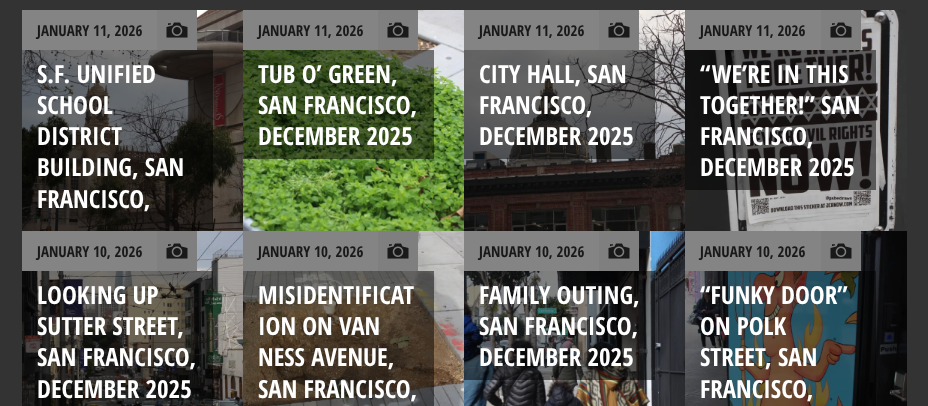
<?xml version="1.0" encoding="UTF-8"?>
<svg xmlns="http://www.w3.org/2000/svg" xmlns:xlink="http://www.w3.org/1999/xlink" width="928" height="406">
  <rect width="100%" height="100%" fill="#333333" />
  <image x="22" y="10" width="221" height="221" xlink:href="image1.png" />
  <rect x="22" y="10" width="135" height="40" fill="#848484" />
  <rect x="157" y="10" width="40" height="40" fill="#7f7f7f" />
  <image x="166" y="22" width="22" height="16" xlink:href="image2.png" />
  <rect x="22" y="50" width="191" height="181" fill="#000000" fill-opacity="0.5" />
  <image x="243" y="10" width="221" height="221" xlink:href="image3.png" />
  <rect x="243" y="10" width="135" height="40" fill="#848484" />
  <rect x="378" y="10" width="40" height="40" fill="#7f7f7f" />
  <image x="387" y="22" width="22" height="16" xlink:href="image2.png" />
  <rect x="243" y="50" width="191" height="109" fill="#000000" fill-opacity="0.5" />
  <image x="464" y="10" width="221" height="221" xlink:href="image4.png" />
  <rect x="464" y="10" width="135" height="40" fill="#848484" />
  <rect x="599" y="10" width="40" height="40" fill="#7f7f7f" />
  <image x="608" y="22" width="22" height="16" xlink:href="image2.png" />
  <rect x="464" y="50" width="191" height="109" fill="#000000" fill-opacity="0.5" />
  <image x="685" y="10" width="222" height="221" xlink:href="image5.png" />
  <rect x="685" y="10" width="136" height="40" fill="#848484" />
  <rect x="821" y="10" width="40" height="40" fill="#7f7f7f" />
  <image x="830" y="22" width="22" height="16" xlink:href="image2.png" />
  <rect x="685" y="50" width="191" height="140" fill="#000000" fill-opacity="0.5" />
  <image x="22" y="231" width="221" height="175" xlink:href="image6.png" />
  <rect x="22" y="231" width="135" height="40" fill="#848484" />
  <rect x="157" y="231" width="40" height="40" fill="#7f7f7f" />
  <image x="166" y="243" width="22" height="16" xlink:href="image2.png" />
  <rect x="22" y="271" width="191" height="135" fill="#000000" fill-opacity="0.5" />
  <image x="243" y="231" width="221" height="175" xlink:href="image7.png" />
  <rect x="243" y="231" width="135" height="40" fill="#848484" />
  <rect x="378" y="231" width="40" height="40" fill="#7f7f7f" />
  <image x="387" y="243" width="22" height="16" xlink:href="image2.png" />
  <rect x="243" y="271" width="191" height="135" fill="#000000" fill-opacity="0.5" />
  <image x="464" y="231" width="221" height="175" xlink:href="image8.png" />
  <rect x="464" y="231" width="135" height="40" fill="#848484" />
  <rect x="599" y="231" width="40" height="40" fill="#7f7f7f" />
  <image x="608" y="243" width="22" height="16" xlink:href="image2.png" />
  <rect x="464" y="271" width="191" height="109" fill="#000000" fill-opacity="0.5" />
  <image x="685" y="231" width="222" height="175" xlink:href="image9.png" />
  <rect x="685" y="231" width="136" height="40" fill="#848484" />
  <rect x="821" y="231" width="40" height="40" fill="#7f7f7f" />
  <image x="830" y="243" width="22" height="16" xlink:href="image2.png" />
  <rect x="685" y="271" width="191" height="135" fill="#000000" fill-opacity="0.5" />
  <text x="37" y="36" style="font-family: Open Sans Condensed; font-size: 15px; font-weight: bold; fill: #191919">JANUARY 11, 2026</text>
  <text x="37" y="83" style="font-family: Open Sans Condensed; font-size: 25px; font-weight: bold; fill: #ffffff">S.F. UNIFIED</text>
  <text x="37" y="114" style="font-family: Open Sans Condensed; font-size: 25px; font-weight: bold; fill: #ffffff">SCHOOL</text>
  <text x="37" y="145" style="font-family: Open Sans Condensed; font-size: 25px; font-weight: bold; fill: #ffffff">DISTRICT</text>
  <text x="37" y="176" style="font-family: Open Sans Condensed; font-size: 25px; font-weight: bold; fill: #ffffff">BUILDING, SAN</text>
  <text x="37" y="208" style="font-family: Open Sans Condensed; font-size: 25px; font-weight: bold; fill: #ffffff">FRANCISCO,</text>
  <text x="258" y="36" style="font-family: Open Sans Condensed; font-size: 15px; font-weight: bold; fill: #191919">JANUARY 11, 2026</text>
  <text x="258" y="83" style="font-family: Open Sans Condensed; font-size: 25px; font-weight: bold; fill: #ffffff">TUB O’ GREEN,</text>
  <text x="258" y="114" style="font-family: Open Sans Condensed; font-size: 25px; font-weight: bold; fill: #ffffff">SAN FRANCISCO,</text>
  <text x="258" y="145" style="font-family: Open Sans Condensed; font-size: 25px; font-weight: bold; fill: #ffffff">DECEMBER 2025</text>
  <text x="479" y="36" style="font-family: Open Sans Condensed; font-size: 15px; font-weight: bold; fill: #191919">JANUARY 11, 2026</text>
  <text x="479" y="83" style="font-family: Open Sans Condensed; font-size: 25px; font-weight: bold; fill: #ffffff">CITY HALL, SAN</text>
  <text x="479" y="114" style="font-family: Open Sans Condensed; font-size: 25px; font-weight: bold; fill: #ffffff">FRANCISCO,</text>
  <text x="479" y="145" style="font-family: Open Sans Condensed; font-size: 25px; font-weight: bold; fill: #ffffff">DECEMBER 2025</text>
  <text x="700" y="36" style="font-family: Open Sans Condensed; font-size: 15px; font-weight: bold; fill: #191919">JANUARY 11, 2026</text>
  <text x="700" y="83" style="font-family: Open Sans Condensed; font-size: 25px; font-weight: bold; fill: #ffffff">“WE’RE IN THIS</text>
  <text x="700" y="114" style="font-family: Open Sans Condensed; font-size: 25px; font-weight: bold; fill: #ffffff">TOGETHER!” SAN</text>
  <text x="700" y="145" style="font-family: Open Sans Condensed; font-size: 25px; font-weight: bold; fill: #ffffff">FRANCISCO,</text>
  <text x="700" y="176" style="font-family: Open Sans Condensed; font-size: 25px; font-weight: bold; fill: #ffffff">DECEMBER 2025</text>
  <text x="37" y="257" style="font-family: Open Sans Condensed; font-size: 15px; font-weight: bold; fill: #191919">JANUARY 10, 2026</text>
  <text x="37" y="304" style="font-family: Open Sans Condensed; font-size: 25px; font-weight: bold; fill: #ffffff">LOOKING UP</text>
  <text x="37" y="335" style="font-family: Open Sans Condensed; font-size: 25px; font-weight: bold; fill: #ffffff">SUTTER STREET,</text>
  <text x="37" y="366" style="font-family: Open Sans Condensed; font-size: 25px; font-weight: bold; fill: #ffffff">SAN FRANCISCO,</text>
  <text x="37" y="398" style="font-family: Open Sans Condensed; font-size: 25px; font-weight: bold; fill: #ffffff">DECEMBER 2025</text>
  <text x="258" y="257" style="font-family: Open Sans Condensed; font-size: 15px; font-weight: bold; fill: #191919">JANUARY 10, 2026</text>
  <text x="258" y="304" style="font-family: Open Sans Condensed; font-size: 25px; font-weight: bold; fill: #ffffff">MISIDENTIFICAT</text>
  <text x="258" y="335" style="font-family: Open Sans Condensed; font-size: 25px; font-weight: bold; fill: #ffffff">ION ON VAN</text>
  <text x="258" y="366" style="font-family: Open Sans Condensed; font-size: 25px; font-weight: bold; fill: #ffffff">NESS AVENUE,</text>
  <text x="258" y="398" style="font-family: Open Sans Condensed; font-size: 25px; font-weight: bold; fill: #ffffff">SAN FRANCISCO,</text>
  <text x="479" y="257" style="font-family: Open Sans Condensed; font-size: 15px; font-weight: bold; fill: #191919">JANUARY 10, 2026</text>
  <text x="479" y="304" style="font-family: Open Sans Condensed; font-size: 25px; font-weight: bold; fill: #ffffff">FAMILY OUTING,</text>
  <text x="479" y="335" style="font-family: Open Sans Condensed; font-size: 25px; font-weight: bold; fill: #ffffff">SAN FRANCISCO,</text>
  <text x="479" y="366" style="font-family: Open Sans Condensed; font-size: 25px; font-weight: bold; fill: #ffffff">DECEMBER 2025</text>
  <text x="700" y="257" style="font-family: Open Sans Condensed; font-size: 15px; font-weight: bold; fill: #191919">JANUARY 10, 2026</text>
  <text x="700" y="304" style="font-family: Open Sans Condensed; font-size: 25px; font-weight: bold; fill: #ffffff">“FUNKY DOOR”</text>
  <text x="700" y="335" style="font-family: Open Sans Condensed; font-size: 25px; font-weight: bold; fill: #ffffff">ON POLK</text>
  <text x="700" y="366" style="font-family: Open Sans Condensed; font-size: 25px; font-weight: bold; fill: #ffffff">STREET, SAN</text>
  <text x="700" y="398" style="font-family: Open Sans Condensed; font-size: 25px; font-weight: bold; fill: #ffffff">FRANCISCO,</text>
</svg>
